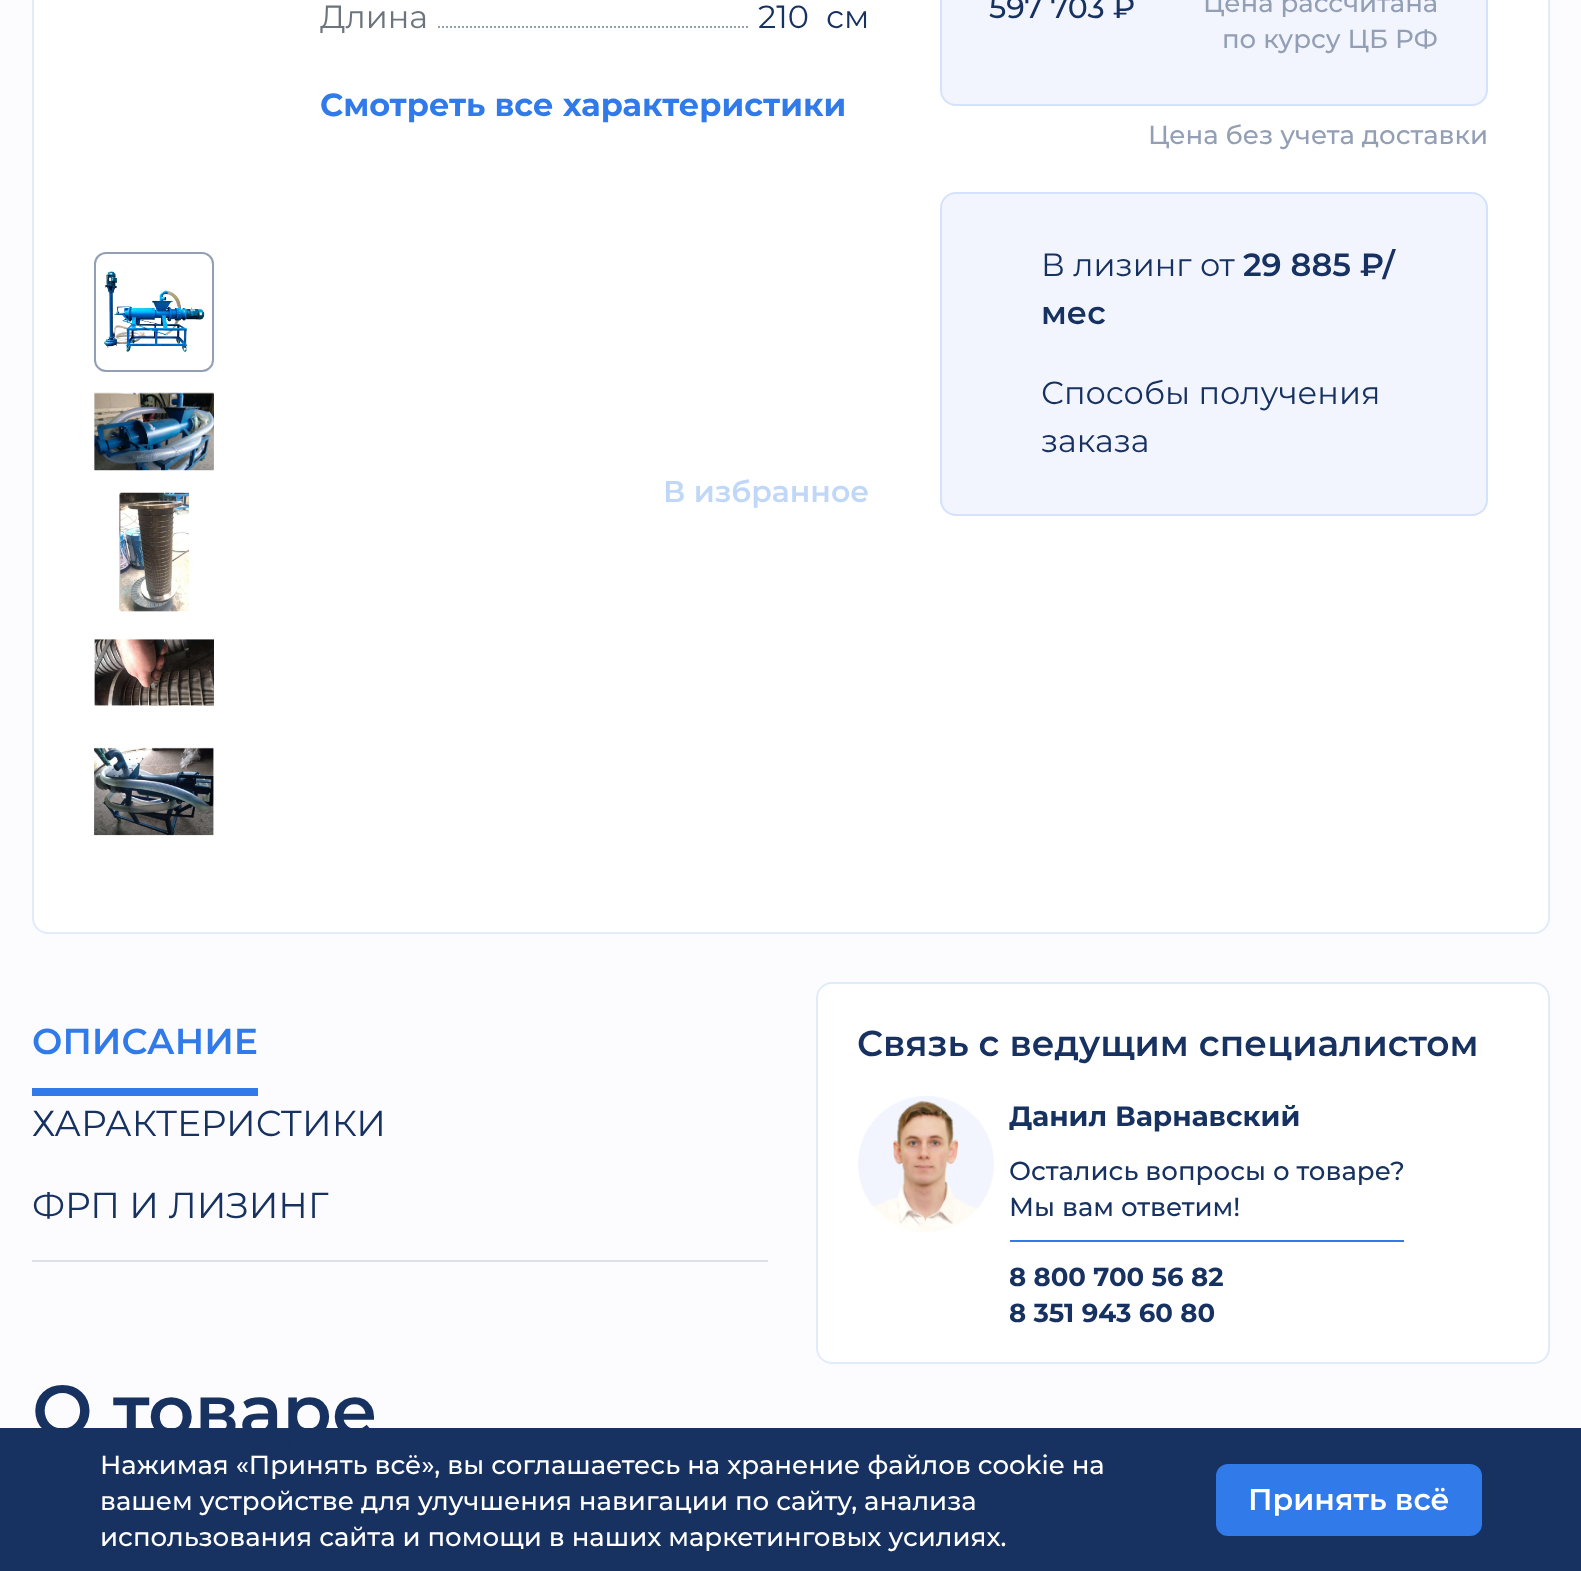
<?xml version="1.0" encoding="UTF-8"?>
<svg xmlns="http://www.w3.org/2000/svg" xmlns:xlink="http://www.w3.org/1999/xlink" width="1581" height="1571">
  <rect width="100%" height="100%" fill="#fcfcff" />
  <rect x="33" y="-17" width="1516" height="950" rx="15" fill="#ffffff" stroke="#e0ebfc" stroke-width="2" />
  <rect x="95" y="253" width="118" height="118" rx="11" fill="none" stroke="#939fb4" stroke-width="2" />
  <image x="104" y="271" width="101" height="81" xlink:href="image1.png" />
  <image x="94" y="392" width="120" height="79" xlink:href="image2.png" />
  <image x="119" y="492" width="70" height="120" xlink:href="image3.png" />
  <image x="94" y="639" width="120" height="67" xlink:href="image4.png" />
  <image x="94" y="747" width="120" height="89" xlink:href="image5.png" />
  <path d="M 438 27 h 310" fill="none" stroke="#939fb4" stroke-width="2" stroke-dasharray="2 2" />
  <rect x="940" y="-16" width="548" height="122" rx="16" fill="#f3f5fe" />
  <rect x="941" y="-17" width="546" height="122" rx="15" fill="none" stroke="#307ae9" stroke-opacity="0.15" stroke-width="2" />
  <rect x="940" y="192" width="548" height="324" rx="16" fill="#f3f5fe" />
  <rect x="941" y="193" width="546" height="322" rx="15" fill="none" stroke="#307ae9" stroke-opacity="0.15" stroke-width="2" />
  <rect x="32" y="1260" width="736" height="2" fill="#dde0e9" />
  <rect x="32" y="1088" width="226" height="8" fill="#307ae9" />
  <rect x="817" y="983" width="732" height="380" rx="15" fill="#ffffff" stroke="#e0ebfc" stroke-width="2" />
  <image x="858" y="1096" width="136" height="136" xlink:href="image6.png" />
  <rect x="1010" y="1240" width="394" height="2" fill="#307ae9" />
  <rect y="1428" width="1581" height="143" fill="#173261" />
  <rect x="1217" y="1465" width="264" height="70" rx="11" fill="#307ae9" stroke="#307ae9" stroke-width="2" />
  <text x="320" y="28" style="font-family: Montserrat; font-size: 32px; fill: #6c757d">Длина</text>
  <text x="758" y="28" style="font-family: Montserrat; font-size: 32px; fill: #173261">210</text>
  <text x="826" y="28" style="font-family: Montserrat; font-size: 32px; fill: #173261">см</text>
  <text x="320" y="116" style="font-family: Montserrat; font-size: 32px; font-weight: bold; fill: #307ae9">Смотреть все характеристики</text>
  <text x="663" y="502" style="font-family: Montserrat; font-size: 30px; font-weight: 600; fill: #c1d7f8">В избранное</text>
  <text x="989" y="18" style="font-family: Montserrat; font-size: 30px; font-weight: 500; fill: #173261">597 703 ₽</text>
  <text x="1203" y="12" style="font-family: Montserrat; font-size: 26px; font-weight: 500; fill: #939fb4">Цена рассчитана</text>
  <text x="1222" y="48" style="font-family: Montserrat; font-size: 26px; font-weight: 500; fill: #939fb4">по курсу ЦБ РФ</text>
  <text x="1148" y="144" style="font-family: Montserrat; font-size: 26px; font-weight: 500; fill: #939fb4">Цена без учета доставки</text>
  <text x="1041" y="276" style="font-family: Montserrat; font-size: 32px; fill: #173261">В лизинг от</text>
  <text x="1243" y="276" style="font-family: Montserrat; font-size: 32px; font-weight: 600; fill: #173261">29 885 ₽/</text>
  <text x="1041" y="324" style="font-family: Montserrat; font-size: 32px; font-weight: 600; fill: #173261">мес</text>
  <text x="1041" y="404" style="font-family: Montserrat; font-size: 32px; fill: #173261">Способы получения</text>
  <text x="1041" y="452" style="font-family: Montserrat; font-size: 32px; fill: #173261">заказа</text>
  <text x="32" y="1054" style="font-family: Montserrat; font-size: 36px; font-weight: 600; fill: #307ae9">ОПИСАНИЕ</text>
  <text x="32" y="1136" style="font-family: Montserrat; font-size: 36px; fill: #173261">ХАРАКТЕРИСТИКИ</text>
  <text x="32" y="1218" style="font-family: Montserrat; font-size: 36px; fill: #173261">ФРП И ЛИЗИНГ</text>
  <text x="32" y="1436" style="font-family: Montserrat; font-size: 72px; font-weight: 600; fill: #173261">О товаре</text>
  <text x="857" y="1056" style="font-family: Montserrat; font-size: 36px; font-weight: 600; fill: #173261">Связь с ведущим специалистом</text>
  <text x="1009" y="1126" style="font-family: Montserrat; font-size: 28px; font-weight: bold; fill: #173261">Данил Варнавский</text>
  <text x="1009" y="1180" style="font-family: Montserrat; font-size: 26px; font-weight: 500; fill: #173261">Остались вопросы о товаре?</text>
  <text x="1009" y="1216" style="font-family: Montserrat; font-size: 26px; font-weight: 500; fill: #173261">Мы вам ответим!</text>
  <text x="1009" y="1286" style="font-family: Montserrat; font-size: 26px; font-weight: bold; fill: #173261">8 800 700 56 82</text>
  <text x="1009" y="1322" style="font-family: Montserrat; font-size: 26px; font-weight: bold; fill: #173261">8 351 943 60 80</text>
  <text x="100" y="1474" style="font-family: Montserrat; font-size: 26px; font-weight: 500; fill: #ffffff">Нажимая «Принять всё», вы соглашаетесь на хранение файлов cookie на</text>
  <text x="100" y="1510" style="font-family: Montserrat; font-size: 26px; font-weight: 500; fill: #ffffff">вашем устройстве для улучшения навигации по сайту, анализа</text>
  <text x="100" y="1546" style="font-family: Montserrat; font-size: 26px; font-weight: 500; fill: #ffffff">использования сайта и помощи в наших маркетинговых усилиях.</text>
  <text x="1248" y="1510" style="font-family: Montserrat; font-size: 30px; font-weight: 600; fill: #ffffff">Принять всё</text>
</svg>
